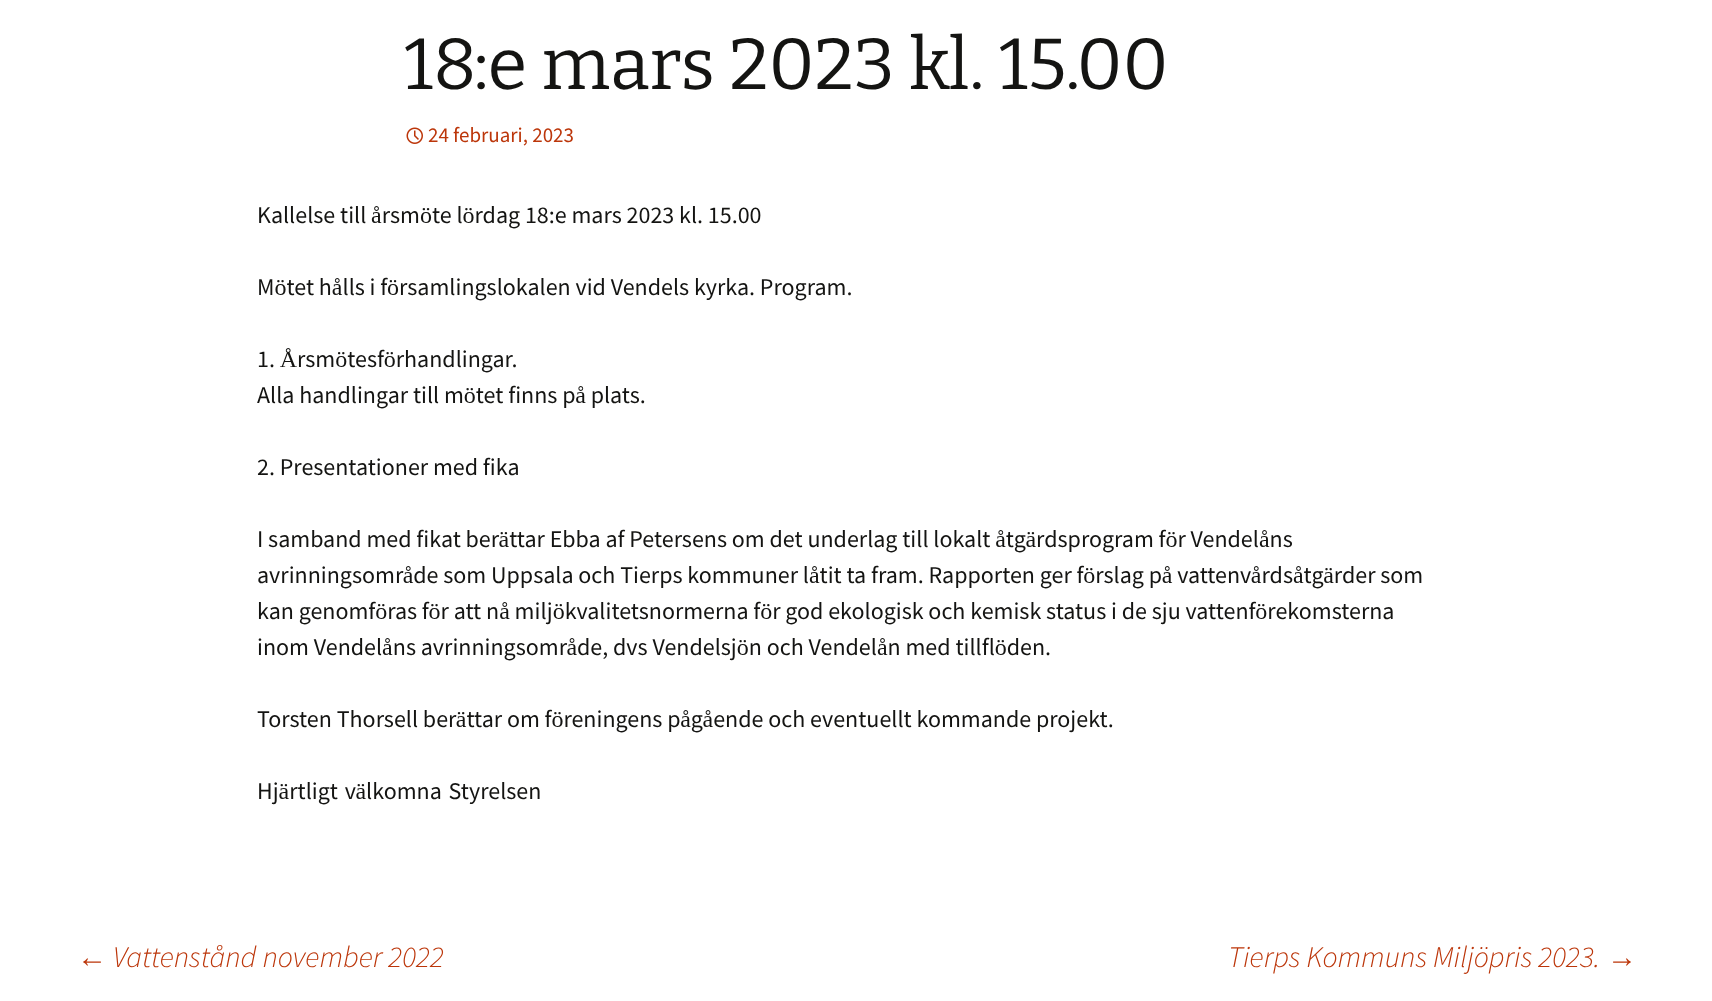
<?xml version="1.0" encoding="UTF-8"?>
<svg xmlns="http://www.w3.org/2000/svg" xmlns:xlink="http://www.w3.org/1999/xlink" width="1712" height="1001">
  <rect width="100%" height="100%" fill="#ffffff" />
  <image x="406" y="127" width="17" height="17" xlink:href="image1.png" />
  <text x="404" y="89" style="font-family: Bitter; font-size: 72px; font-weight: 100; fill: #141412">18:e mars 2023 kl. 15.00</text>
  <text x="428" y="142" style="font-family: Source Sans Pro; font-size: 21px; fill: #bc360a">24 februari, 2023</text>
  <text x="257" y="223" style="font-family: Source Sans Pro; font-size: 24px; fill: #141412">Kallelse till årsmöte lördag 18:e mars 2023 kl. 15.00</text>
  <text x="257" y="295" style="font-family: Source Sans Pro; font-size: 24px; fill: #141412">Mötet hålls i församlingslokalen vid Vendels kyrka. Program.</text>
  <text x="257" y="367" style="font-family: Source Sans Pro; font-size: 24px; fill: #141412">1. Årsmötesförhandlingar.</text>
  <text x="257" y="403" style="font-family: Source Sans Pro; font-size: 24px; fill: #141412">Alla handlingar till mötet finns på plats.</text>
  <text x="257" y="475" style="font-family: Source Sans Pro; font-size: 24px; fill: #141412">2. Presentationer med fika</text>
  <text x="257" y="547" style="font-family: Source Sans Pro; font-size: 24px; fill: #141412">I samband med fikat berättar Ebba af Petersens om det underlag till lokalt åtgärdsprogram för Vendelåns</text>
  <text x="257" y="583" style="font-family: Source Sans Pro; font-size: 24px; fill: #141412">avrinningsområde som Uppsala och Tierps kommuner låtit ta fram. Rapporten ger förslag på vattenvårdsåtgärder som</text>
  <text x="257" y="619" style="font-family: Source Sans Pro; font-size: 24px; fill: #141412">kan genomföras för att nå miljökvalitetsnormerna för god ekologisk och kemisk status i de sju vattenförekomsterna</text>
  <text x="257" y="655" style="font-family: Source Sans Pro; font-size: 24px; fill: #141412">inom Vendelåns avrinningsområde, dvs Vendelsjön och Vendelån med tillflöden.</text>
  <text x="257" y="727" style="font-family: Source Sans Pro; font-size: 24px; fill: #141412">Torsten Thorsell berättar om föreningens pågående och eventuellt kommande projekt.</text>
  <text x="257" y="799" word-spacing="2" style="font-family: Source Sans Pro; font-size: 24px; fill: #141412">Hjärtligt välkomna Styrelsen</text>
  <text x="77" y="967" style="font-family: Liberation Sans; font-size: 30px; font-style: italic; fill: #bc360a">←</text>
  <text x="113" y="967" style="font-family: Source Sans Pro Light; font-size: 30px; font-weight: 300; font-style: italic; fill: #bc360a">Vattenstånd november 2022</text>
  <text x="1228" y="967" style="font-family: Source Sans Pro Light; font-size: 30px; font-weight: 300; font-style: italic; fill: #bc360a">Tierps Kommuns Miljöpris 2023.</text>
  <text x="1607" y="967" style="font-family: Liberation Sans; font-size: 30px; font-style: italic; fill: #bc360a">→</text>
</svg>
